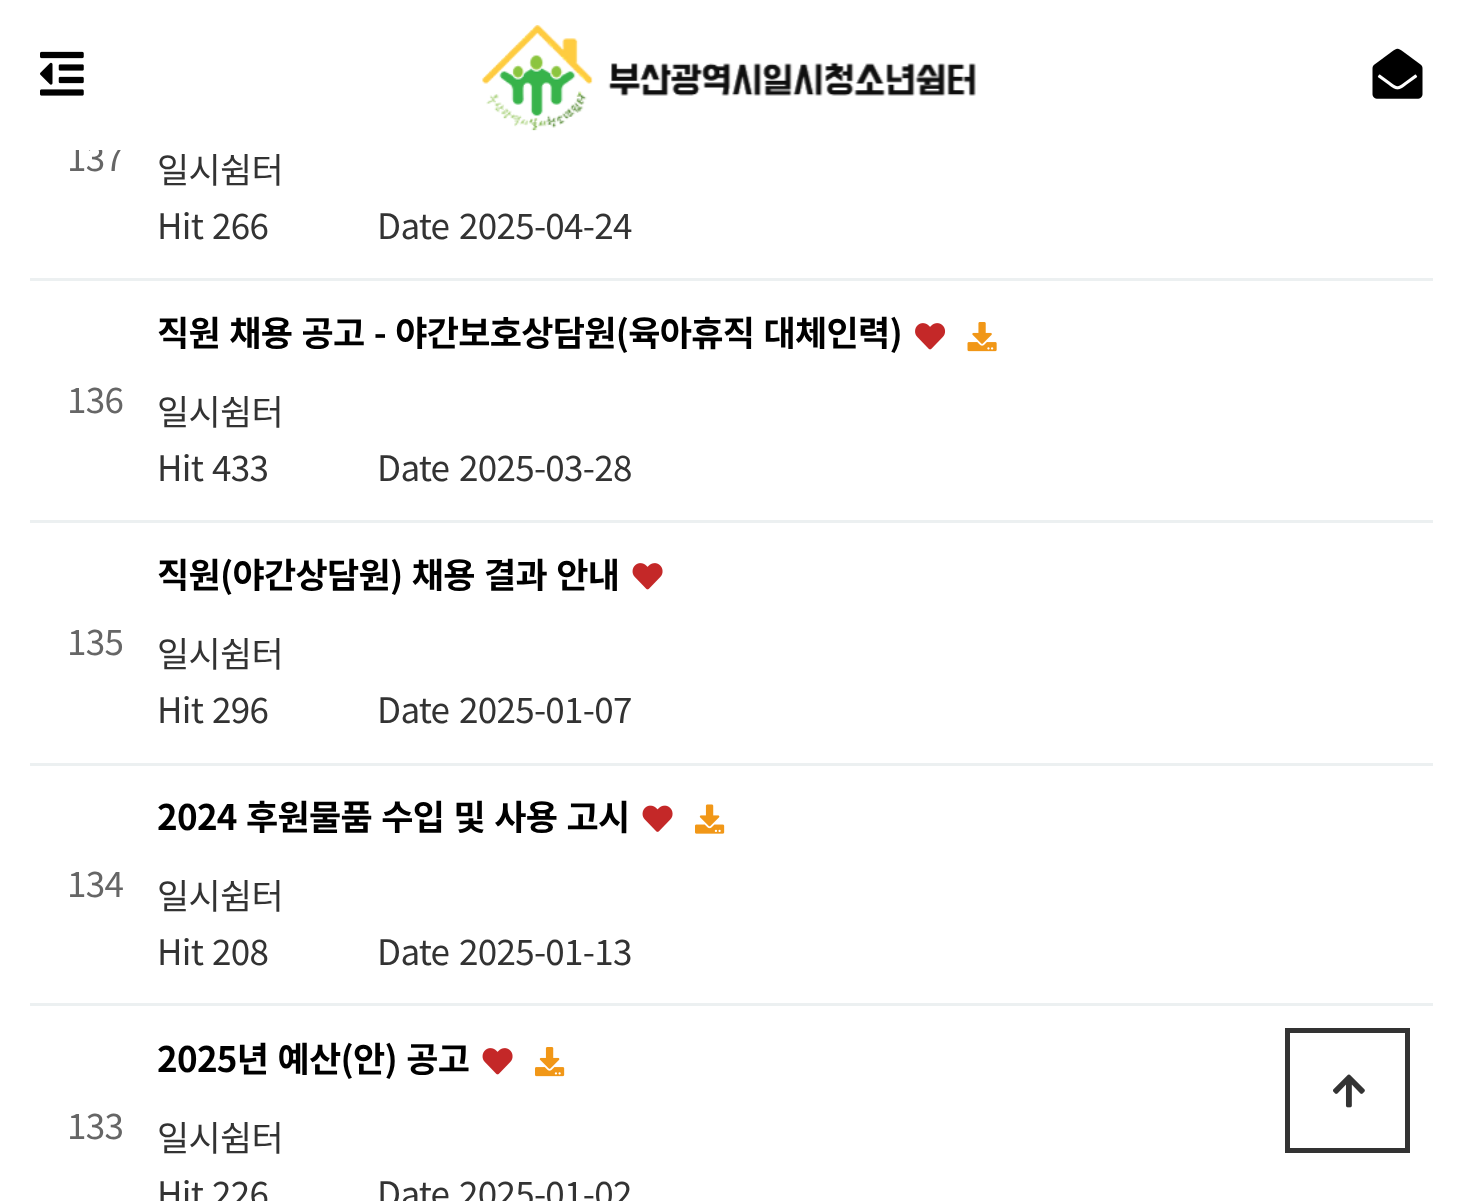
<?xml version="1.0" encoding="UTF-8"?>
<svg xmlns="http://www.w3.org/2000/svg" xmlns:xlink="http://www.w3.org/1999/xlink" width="1458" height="1201">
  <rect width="100%" height="100%" fill="#ffffff" />
  <image x="482" y="25" width="494" height="106" xlink:href="image1.png" />
  <image x="40" y="51" width="44" height="45" xlink:href="image2.png" />
  <image x="1372" y="48" width="51" height="51" xlink:href="image3.png" />
  <rect x="30" y="278" width="1403" height="3" fill="#ecf0f1" />
  <image x="915" y="323" width="31" height="27" xlink:href="image4.png" />
  <image x="967" y="322" width="30" height="30" xlink:href="image5.png" />
  <rect x="30" y="520" width="1403" height="3" fill="#ecf0f1" />
  <image x="632" y="563" width="31" height="27" xlink:href="image6.png" />
  <rect x="30" y="763" width="1403" height="3" fill="#ecf0f1" />
  <image x="642" y="805" width="31" height="27" xlink:href="image7.png" />
  <image x="695" y="804" width="30" height="30" xlink:href="image8.png" />
  <rect x="30" y="1003" width="1403" height="3" fill="#ecf0f1" />
  <image x="482" y="1048" width="31" height="27" xlink:href="image6.png" />
  <image x="535" y="1047" width="30" height="30" xlink:href="image9.png" />
  <rect x="1287.5" y="1030.5" width="120" height="120" fill="none" stroke="#333333" stroke-width="5" />
  <image x="1333" y="1074" width="32" height="34" xlink:href="image10.png" />
  <text x="67" y="171" style="font-family: Noto Sans KR; font-size: 35px; letter-spacing: -0.7px; fill: #666666">137</text>
  <rect x="71" y="144" width="52" height="6" fill="#ffffff" />
  <text x="157" y="183" style="font-family: Noto Sans KR; font-size: 35px; letter-spacing: -0.7px; fill: #333333">일시쉼터</text>
  <text x="157" y="239" style="font-family: Noto Sans KR; font-size: 35px; letter-spacing: -0.7px; fill: #333333">Hit</text>
  <text x="212" y="239" style="font-family: Noto Sans KR; font-size: 35px; letter-spacing: -0.7px; fill: #333333">266</text>
  <text x="377" y="239" style="font-family: Noto Sans KR; font-size: 35px; letter-spacing: -0.7px; fill: #333333">Date</text>
  <text x="459" y="239" style="font-family: Noto Sans KR; font-size: 35px; letter-spacing: -0.7px; fill: #333333">2025-04-24</text>
  <text x="67" y="413" style="font-family: Noto Sans KR; font-size: 35px; letter-spacing: -0.7px; fill: #666666">136</text>
  <text x="157" y="346" word-spacing="2" style="font-family: Noto Sans KR; font-size: 35px; font-weight: bold; letter-spacing: -0.7px; fill: #000000">직원 채용 공고 - 야간보호상담원(육아휴직 대체인력)</text>
  <text x="157" y="425" style="font-family: Noto Sans KR; font-size: 35px; letter-spacing: -0.7px; fill: #333333">일시쉼터</text>
  <text x="157" y="481" style="font-family: Noto Sans KR; font-size: 35px; letter-spacing: -0.7px; fill: #333333">Hit</text>
  <text x="212" y="481" style="font-family: Noto Sans KR; font-size: 35px; letter-spacing: -0.7px; fill: #333333">433</text>
  <text x="377" y="481" style="font-family: Noto Sans KR; font-size: 35px; letter-spacing: -0.7px; fill: #333333">Date</text>
  <text x="459" y="481" style="font-family: Noto Sans KR; font-size: 35px; letter-spacing: -0.7px; fill: #333333">2025-03-28</text>
  <text x="67" y="655" style="font-family: Noto Sans KR; font-size: 35px; letter-spacing: -0.7px; fill: #666666">135</text>
  <text x="157" y="588" word-spacing="2" style="font-family: Noto Sans KR; font-size: 35px; font-weight: bold; letter-spacing: -0.7px; fill: #000000">직원(야간상담원) 채용 결과 안내</text>
  <text x="157" y="667" style="font-family: Noto Sans KR; font-size: 35px; letter-spacing: -0.7px; fill: #333333">일시쉼터</text>
  <text x="157" y="723" style="font-family: Noto Sans KR; font-size: 35px; letter-spacing: -0.7px; fill: #333333">Hit</text>
  <text x="212" y="723" style="font-family: Noto Sans KR; font-size: 35px; letter-spacing: -0.7px; fill: #333333">296</text>
  <text x="377" y="723" style="font-family: Noto Sans KR; font-size: 35px; letter-spacing: -0.7px; fill: #333333">Date</text>
  <text x="459" y="723" style="font-family: Noto Sans KR; font-size: 35px; letter-spacing: -0.7px; fill: #333333">2025-01-07</text>
  <text x="67" y="897" style="font-family: Noto Sans KR; font-size: 35px; letter-spacing: -0.7px; fill: #666666">134</text>
  <text x="157" y="830" word-spacing="2" style="font-family: Noto Sans KR; font-size: 35px; font-weight: bold; letter-spacing: -0.7px; fill: #000000">2024 후원물품 수입 및 사용 고시</text>
  <text x="157" y="909" style="font-family: Noto Sans KR; font-size: 35px; letter-spacing: -0.7px; fill: #333333">일시쉼터</text>
  <text x="157" y="965" style="font-family: Noto Sans KR; font-size: 35px; letter-spacing: -0.7px; fill: #333333">Hit</text>
  <text x="212" y="965" style="font-family: Noto Sans KR; font-size: 35px; letter-spacing: -0.7px; fill: #333333">208</text>
  <text x="377" y="965" style="font-family: Noto Sans KR; font-size: 35px; letter-spacing: -0.7px; fill: #333333">Date</text>
  <text x="459" y="965" style="font-family: Noto Sans KR; font-size: 35px; letter-spacing: -0.7px; fill: #333333">2025-01-13</text>
  <text x="67" y="1139" style="font-family: Noto Sans KR; font-size: 35px; letter-spacing: -0.7px; fill: #666666">133</text>
  <text x="157" y="1072" word-spacing="2" style="font-family: Noto Sans KR; font-size: 35px; font-weight: bold; letter-spacing: -0.7px; fill: #000000">2025년 예산(안) 공고</text>
  <text x="157" y="1151" style="font-family: Noto Sans KR; font-size: 35px; letter-spacing: -0.7px; fill: #333333">일시쉼터</text>
  <text x="157" y="1207" style="font-family: Noto Sans KR; font-size: 35px; letter-spacing: -0.7px; fill: #333333">Hit</text>
  <text x="212" y="1207" style="font-family: Noto Sans KR; font-size: 35px; letter-spacing: -0.7px; fill: #333333">226</text>
  <text x="377" y="1207" style="font-family: Noto Sans KR; font-size: 35px; letter-spacing: -0.7px; fill: #333333">Date</text>
  <text x="459" y="1207" style="font-family: Noto Sans KR; font-size: 35px; letter-spacing: -0.7px; fill: #333333">2025-01-02</text>
</svg>
